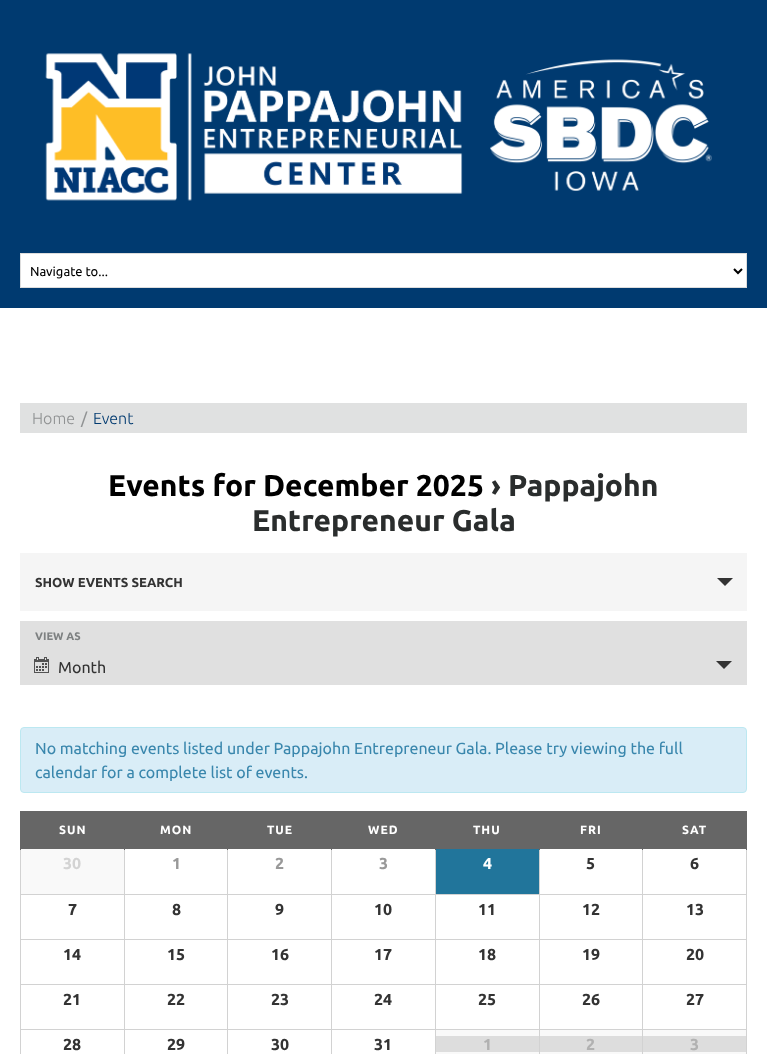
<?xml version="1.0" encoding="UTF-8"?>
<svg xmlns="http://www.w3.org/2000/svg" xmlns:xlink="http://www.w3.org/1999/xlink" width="767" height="1054">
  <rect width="100%" height="100%" fill="#ffffff" />
  <rect width="767" height="308" fill="#003a70" />
  <image x="45" y="53" width="667" height="148" xlink:href="image1.png" />
  <rect x="20.5" y="253.5" width="726" height="34" fill="#ffffff" stroke="#dddddd" />
  <path d="M 734 269 l 4 4 l 4 -4" fill="none" stroke="#000000" stroke-width="2" />
  <rect x="20" y="403" width="727" height="30" fill="#e0e1e1" />
  <rect x="20" y="553" width="727" height="58" fill="#f5f5f5" />
  <path d="M 717 578 h 16 l -8 8 z" fill="#333333" />
  <rect x="20" y="621" width="727" height="64" fill="#e0e0e0" />
  <image x="34" y="657" width="15" height="16" xlink:href="image2.png" />
  <path d="M 716 661 h 16 l -8 8 z" fill="#333333" />
  <rect x="20.5" y="727.5" width="726" height="65" rx="3.5" fill="#d9edf7" stroke="#bce8f1" />
  <rect x="21" y="811" width="103" height="38" fill="#666666" />
  <rect x="746" y="849" width="1" height="205" fill="#d2d2d2" />
  <rect x="642" y="1029" width="1" height="25" fill="#d2d2d2" />
  <rect x="642" y="1029" width="105" height="1" fill="#d2d2d2" />
  <rect x="642" y="984" width="1" height="46" fill="#d2d2d2" />
  <rect x="642" y="984" width="105" height="1" fill="#d2d2d2" />
  <rect x="642" y="939" width="1" height="46" fill="#d2d2d2" />
  <rect x="642" y="939" width="105" height="1" fill="#d2d2d2" />
  <rect x="642" y="894" width="1" height="46" fill="#d2d2d2" />
  <rect x="642" y="894" width="105" height="1" fill="#d2d2d2" />
  <rect x="642" y="849" width="1" height="46" fill="#d2d2d2" />
  <rect x="539" y="1029" width="1" height="25" fill="#d2d2d2" />
  <rect x="539" y="1029" width="104" height="1" fill="#d2d2d2" />
  <rect x="539" y="984" width="1" height="46" fill="#d2d2d2" />
  <rect x="539" y="984" width="104" height="1" fill="#d2d2d2" />
  <rect x="539" y="939" width="1" height="46" fill="#d2d2d2" />
  <rect x="539" y="939" width="104" height="1" fill="#d2d2d2" />
  <rect x="539" y="894" width="1" height="46" fill="#d2d2d2" />
  <rect x="539" y="894" width="104" height="1" fill="#d2d2d2" />
  <rect x="539" y="849" width="1" height="46" fill="#d2d2d2" />
  <rect x="435" y="1029" width="1" height="25" fill="#d2d2d2" />
  <rect x="435" y="1029" width="105" height="1" fill="#d2d2d2" />
  <rect x="435" y="984" width="1" height="46" fill="#d2d2d2" />
  <rect x="435" y="984" width="105" height="1" fill="#d2d2d2" />
  <rect x="435" y="939" width="1" height="46" fill="#d2d2d2" />
  <rect x="435" y="939" width="105" height="1" fill="#d2d2d2" />
  <rect x="435" y="894" width="1" height="46" fill="#d2d2d2" />
  <rect x="435" y="894" width="105" height="1" fill="#d2d2d2" />
  <rect x="435" y="849" width="1" height="46" fill="#d2d2d2" />
  <rect x="331" y="1029" width="1" height="25" fill="#d2d2d2" />
  <rect x="331" y="1029" width="105" height="1" fill="#d2d2d2" />
  <rect x="331" y="984" width="1" height="46" fill="#d2d2d2" />
  <rect x="331" y="984" width="105" height="1" fill="#d2d2d2" />
  <rect x="331" y="939" width="1" height="46" fill="#d2d2d2" />
  <rect x="331" y="939" width="105" height="1" fill="#d2d2d2" />
  <rect x="331" y="894" width="1" height="46" fill="#d2d2d2" />
  <rect x="331" y="894" width="105" height="1" fill="#d2d2d2" />
  <rect x="331" y="849" width="1" height="46" fill="#d2d2d2" />
  <rect x="227" y="1029" width="1" height="25" fill="#d2d2d2" />
  <rect x="227" y="1029" width="105" height="1" fill="#d2d2d2" />
  <rect x="227" y="984" width="1" height="46" fill="#d2d2d2" />
  <rect x="227" y="984" width="105" height="1" fill="#d2d2d2" />
  <rect x="227" y="939" width="1" height="46" fill="#d2d2d2" />
  <rect x="227" y="939" width="105" height="1" fill="#d2d2d2" />
  <rect x="227" y="894" width="1" height="46" fill="#d2d2d2" />
  <rect x="227" y="894" width="105" height="1" fill="#d2d2d2" />
  <rect x="227" y="849" width="1" height="46" fill="#d2d2d2" />
  <rect x="124" y="1029" width="1" height="25" fill="#d2d2d2" />
  <rect x="124" y="1029" width="104" height="1" fill="#d2d2d2" />
  <rect x="124" y="984" width="1" height="46" fill="#d2d2d2" />
  <rect x="124" y="984" width="104" height="1" fill="#d2d2d2" />
  <rect x="124" y="939" width="1" height="46" fill="#d2d2d2" />
  <rect x="124" y="939" width="104" height="1" fill="#d2d2d2" />
  <rect x="124" y="894" width="1" height="46" fill="#d2d2d2" />
  <rect x="124" y="894" width="104" height="1" fill="#d2d2d2" />
  <rect x="124" y="849" width="1" height="46" fill="#d2d2d2" />
  <rect x="20" y="1029" width="1" height="25" fill="#d2d2d2" />
  <rect x="20" y="1029" width="105" height="1" fill="#d2d2d2" />
  <rect x="20" y="984" width="1" height="46" fill="#d2d2d2" />
  <rect x="20" y="984" width="105" height="1" fill="#d2d2d2" />
  <rect x="20" y="939" width="1" height="46" fill="#d2d2d2" />
  <rect x="20" y="939" width="105" height="1" fill="#d2d2d2" />
  <rect x="20" y="894" width="1" height="46" fill="#d2d2d2" />
  <rect x="20" y="894" width="105" height="1" fill="#d2d2d2" />
  <rect x="20" y="849" width="1" height="46" fill="#d2d2d2" />
  <rect x="20" y="811" width="1" height="39" fill="#666666" />
  <rect x="125" y="811" width="102" height="38" fill="#666666" />
  <rect x="124" y="811" width="1" height="39" fill="#666666" />
  <rect x="228" y="811" width="103" height="38" fill="#666666" />
  <rect x="227" y="811" width="1" height="39" fill="#666666" />
  <rect x="332" y="811" width="103" height="38" fill="#666666" />
  <rect x="331" y="811" width="1" height="39" fill="#666666" />
  <rect x="436" y="811" width="103" height="38" fill="#666666" />
  <rect x="435" y="811" width="1" height="39" fill="#666666" />
  <rect x="540" y="811" width="102" height="38" fill="#666666" />
  <rect x="539" y="811" width="1" height="39" fill="#666666" />
  <rect x="643" y="811" width="103" height="38" fill="#666666" />
  <rect x="746" y="811" width="1" height="39" fill="#666666" />
  <rect x="642" y="811" width="1" height="39" fill="#666666" />
  <rect x="21" y="849" width="103" height="45" fill="#f9f9f9" />
  <rect x="436" y="849" width="103" height="45" fill="#21759b" />
  <rect x="436" y="1030" width="103" height="24" fill="#f9f9f9" />
  <rect x="436" y="1036" width="103" height="16" fill="#dddddd" />
  <rect x="540" y="1030" width="102" height="24" fill="#f9f9f9" />
  <rect x="540" y="1036" width="102" height="16" fill="#dddddd" />
  <rect x="643" y="1030" width="103" height="24" fill="#f9f9f9" />
  <rect x="643" y="1036" width="103" height="16" fill="#dddddd" />
  <text x="30" y="276" style="font-family: Ubuntu; font-size: 13px; fill: #000000">Navigate to...</text>
  <text x="32" y="424" style="font-family: Ubuntu; font-size: 16px; font-weight: 300; fill: #909293">Home</text>
  <text x="81" y="424" style="font-family: Ubuntu; font-size: 16px; fill: #909293">/</text>
  <text x="93" y="424" style="font-family: Ubuntu; font-size: 16px; font-weight: 300; fill: #003a70">Event</text>
  <text x="108" y="496" style="font-family: Ubuntu; font-size: 30px; font-weight: bold; fill: #000000">Events for December 2025</text>
  <text x="491" y="496" style="font-family: Ubuntu; font-size: 30px; font-weight: bold; fill: #2a2d2d">› Pappajohn</text>
  <text x="252" y="531" style="font-family: Ubuntu; font-size: 30px; font-weight: bold; fill: #2a2d2d">Entrepreneur Gala</text>
  <text x="35" y="587" style="font-family: Ubuntu; font-size: 13px; font-weight: bold; fill: #333333">SHOW EVENTS SEARCH</text>
  <text x="35" y="640" style="font-family: Ubuntu; font-size: 11px; font-weight: bold; fill: #7d8081">VIEW AS</text>
  <text x="58" y="673" style="font-family: Ubuntu; font-size: 16px; fill: #333333">Month</text>
  <text x="35" y="754" style="font-family: Ubuntu; font-size: 16px; fill: #3a87ad">No matching events listed under Pappajohn Entrepreneur Gala. Please try viewing the full</text>
  <text x="35" y="778" style="font-family: Ubuntu; font-size: 16px; fill: #3a87ad">calendar for a complete list of events.</text>
  <text x="59" y="834" style="font-family: Ubuntu; font-size: 12px; font-weight: bold; letter-spacing: 1px; fill: #ffffff">SUN</text>
  <text x="160" y="834" style="font-family: Ubuntu; font-size: 12px; font-weight: bold; letter-spacing: 1px; fill: #ffffff">MON</text>
  <text x="267" y="834" style="font-family: Ubuntu; font-size: 12px; font-weight: bold; letter-spacing: 1px; fill: #ffffff">TUE</text>
  <text x="368" y="834" style="font-family: Ubuntu; font-size: 12px; font-weight: bold; letter-spacing: 1px; fill: #ffffff">WED</text>
  <text x="473" y="834" style="font-family: Ubuntu; font-size: 12px; font-weight: bold; letter-spacing: 1px; fill: #ffffff">THU</text>
  <text x="580" y="834" style="font-family: Ubuntu; font-size: 12px; font-weight: bold; letter-spacing: 1px; fill: #ffffff">FRI</text>
  <text x="682" y="834" style="font-family: Ubuntu; font-size: 12px; font-weight: bold; letter-spacing: 1px; fill: #ffffff">SAT</text>
  <text x="63" y="869" style="font-family: Ubuntu; font-size: 16px; font-weight: bold; fill: #d3d3d3">30</text>
  <text x="172" y="869" style="font-family: Ubuntu; font-size: 16px; font-weight: bold; fill: #999999">1</text>
  <text x="275" y="869" style="font-family: Ubuntu; font-size: 16px; font-weight: bold; fill: #999999">2</text>
  <text x="379" y="869" style="font-family: Ubuntu; font-size: 16px; font-weight: bold; fill: #999999">3</text>
  <text x="483" y="869" style="font-family: Ubuntu; font-size: 16px; font-weight: bold; fill: #ffffff">4</text>
  <text x="586" y="869" style="font-family: Ubuntu; font-size: 16px; font-weight: bold; fill: #333333">5</text>
  <text x="690" y="869" style="font-family: Ubuntu; font-size: 16px; font-weight: bold; fill: #333333">6</text>
  <text x="68" y="915" style="font-family: Ubuntu; font-size: 16px; font-weight: bold; fill: #333333">7</text>
  <text x="172" y="915" style="font-family: Ubuntu; font-size: 16px; font-weight: bold; fill: #333333">8</text>
  <text x="275" y="915" style="font-family: Ubuntu; font-size: 16px; font-weight: bold; fill: #333333">9</text>
  <text x="374" y="915" style="font-family: Ubuntu; font-size: 16px; font-weight: bold; fill: #333333">10</text>
  <text x="478" y="915" style="font-family: Ubuntu; font-size: 16px; font-weight: bold; fill: #333333">11</text>
  <text x="582" y="915" style="font-family: Ubuntu; font-size: 16px; font-weight: bold; fill: #333333">12</text>
  <text x="686" y="915" style="font-family: Ubuntu; font-size: 16px; font-weight: bold; fill: #333333">13</text>
  <text x="63" y="960" style="font-family: Ubuntu; font-size: 16px; font-weight: bold; fill: #333333">14</text>
  <text x="167" y="960" style="font-family: Ubuntu; font-size: 16px; font-weight: bold; fill: #333333">15</text>
  <text x="271" y="960" style="font-family: Ubuntu; font-size: 16px; font-weight: bold; fill: #333333">16</text>
  <text x="374" y="960" style="font-family: Ubuntu; font-size: 16px; font-weight: bold; fill: #333333">17</text>
  <text x="478" y="960" style="font-family: Ubuntu; font-size: 16px; font-weight: bold; fill: #333333">18</text>
  <text x="582" y="960" style="font-family: Ubuntu; font-size: 16px; font-weight: bold; fill: #333333">19</text>
  <text x="686" y="960" style="font-family: Ubuntu; font-size: 16px; font-weight: bold; fill: #333333">20</text>
  <text x="63" y="1005" style="font-family: Ubuntu; font-size: 16px; font-weight: bold; fill: #333333">21</text>
  <text x="167" y="1005" style="font-family: Ubuntu; font-size: 16px; font-weight: bold; fill: #333333">22</text>
  <text x="271" y="1005" style="font-family: Ubuntu; font-size: 16px; font-weight: bold; fill: #333333">23</text>
  <text x="374" y="1005" style="font-family: Ubuntu; font-size: 16px; font-weight: bold; fill: #333333">24</text>
  <text x="478" y="1005" style="font-family: Ubuntu; font-size: 16px; font-weight: bold; fill: #333333">25</text>
  <text x="582" y="1005" style="font-family: Ubuntu; font-size: 16px; font-weight: bold; fill: #333333">26</text>
  <text x="686" y="1005" style="font-family: Ubuntu; font-size: 16px; font-weight: bold; fill: #333333">27</text>
  <text x="63" y="1050" style="font-family: Ubuntu; font-size: 16px; font-weight: bold; fill: #333333">28</text>
  <text x="167" y="1050" style="font-family: Ubuntu; font-size: 16px; font-weight: bold; fill: #333333">29</text>
  <text x="271" y="1050" style="font-family: Ubuntu; font-size: 16px; font-weight: bold; fill: #333333">30</text>
  <text x="374" y="1050" style="font-family: Ubuntu; font-size: 16px; font-weight: bold; fill: #333333">31</text>
  <text x="483" y="1050" style="font-family: Ubuntu; font-size: 16px; font-weight: bold; fill: #b1b1b1">1</text>
  <text x="586" y="1050" style="font-family: Ubuntu; font-size: 16px; font-weight: bold; fill: #b1b1b1">2</text>
  <text x="690" y="1050" style="font-family: Ubuntu; font-size: 16px; font-weight: bold; fill: #b1b1b1">3</text>
</svg>
